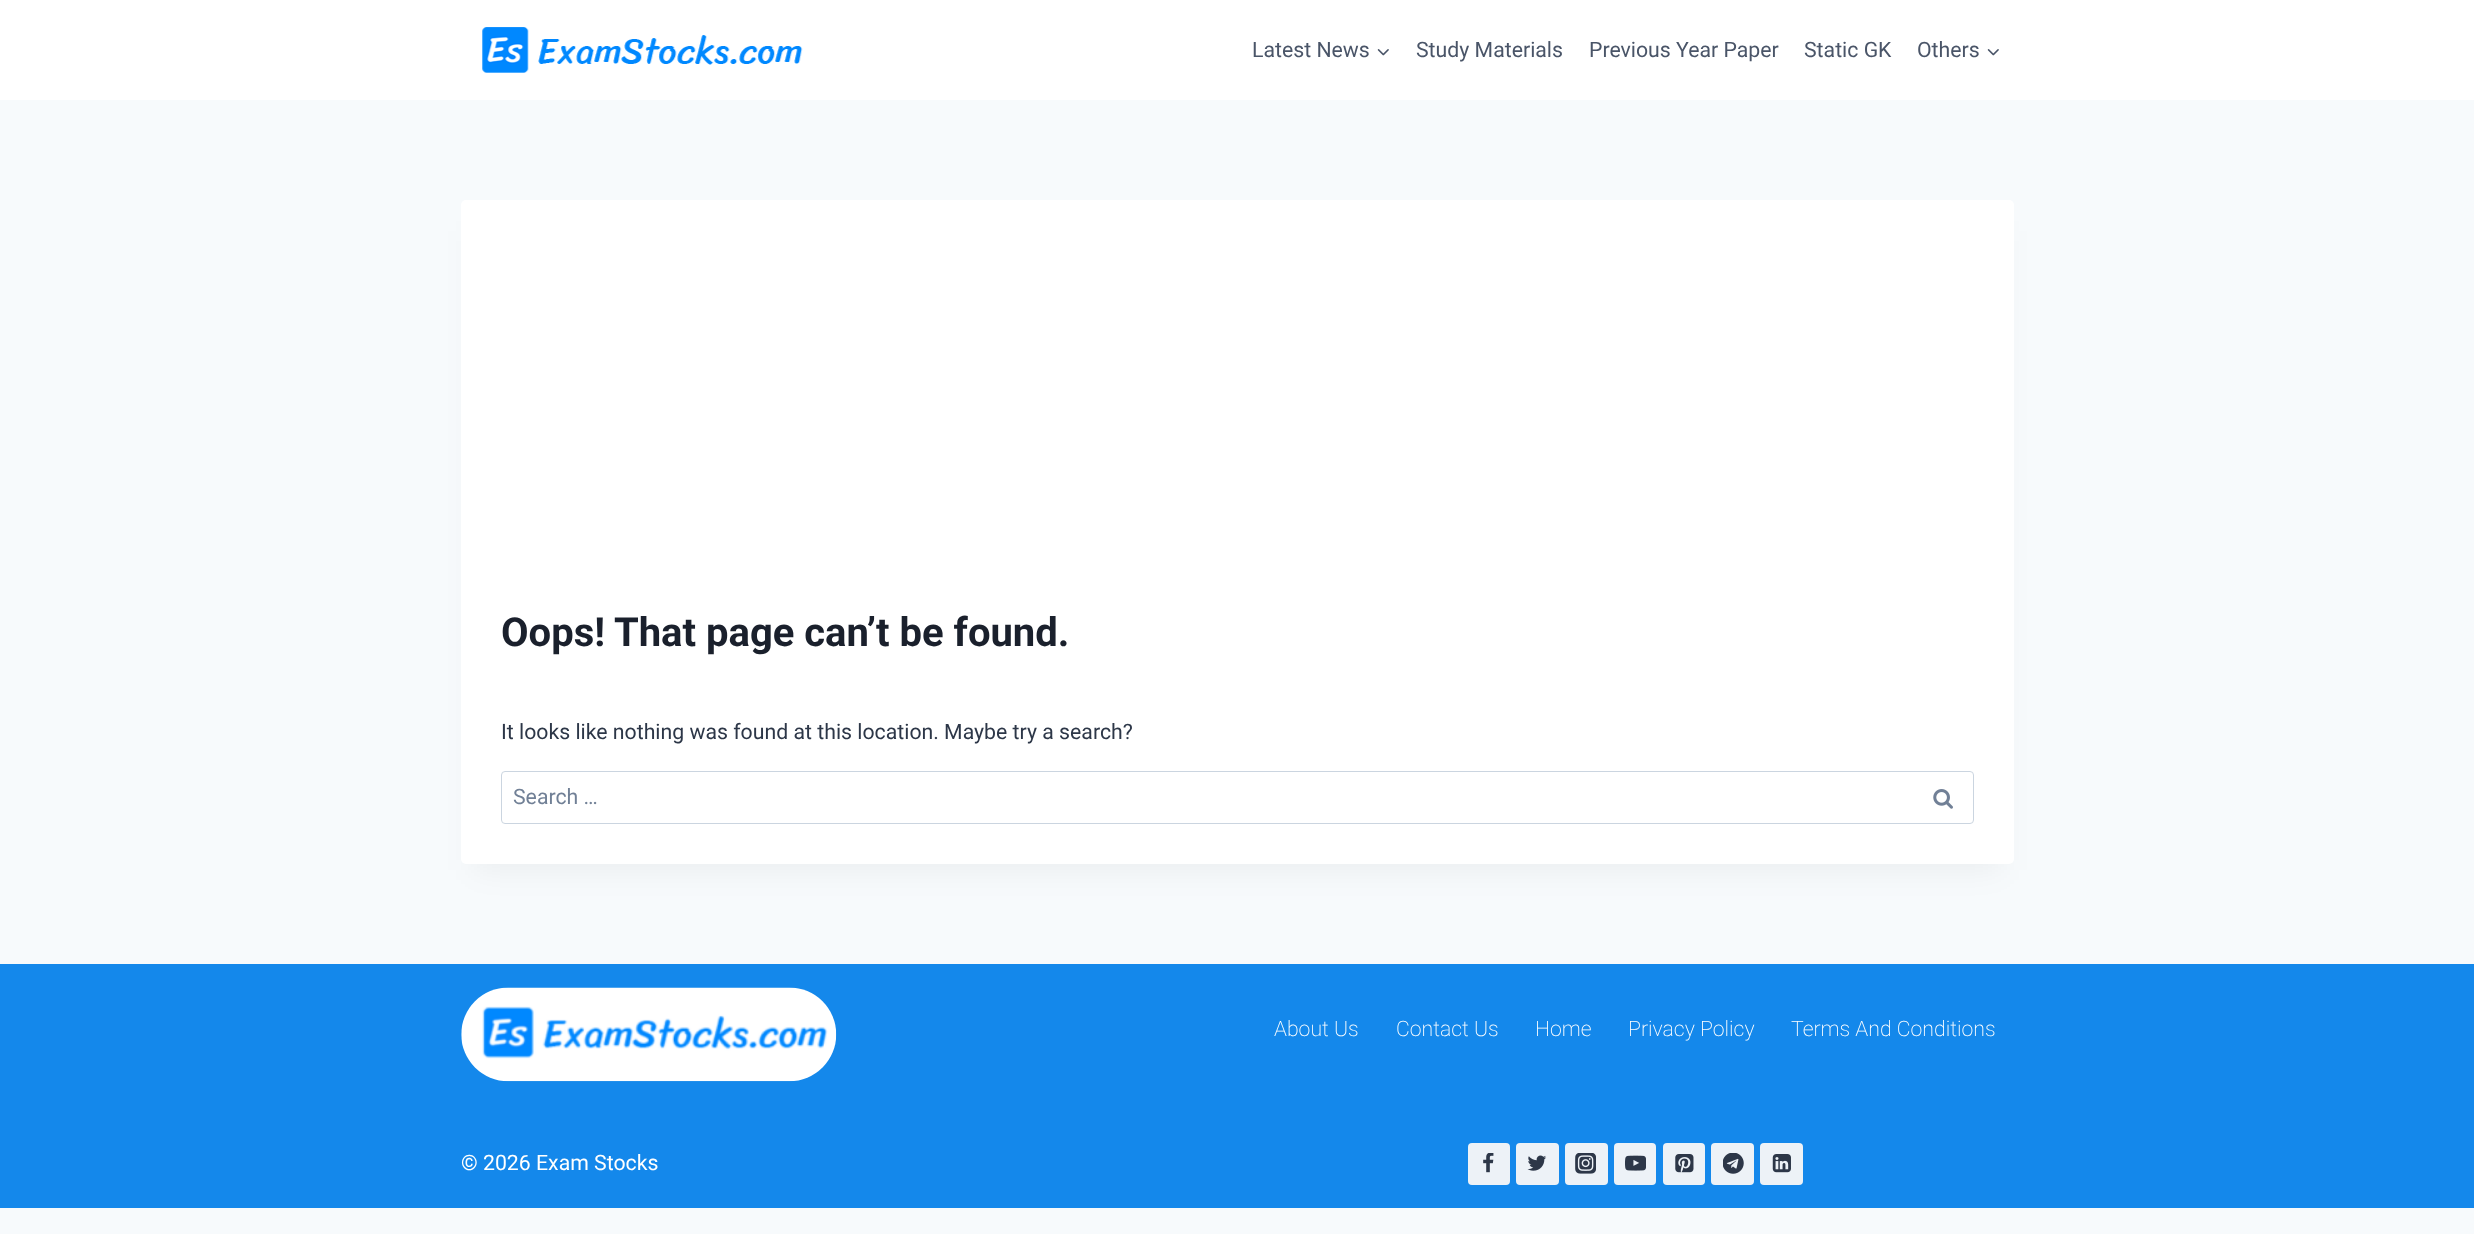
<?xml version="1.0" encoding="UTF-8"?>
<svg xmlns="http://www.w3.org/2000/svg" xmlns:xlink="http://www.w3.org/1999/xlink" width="2474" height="1234">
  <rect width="100%" height="100%" fill="#f7fafc" />
  <rect width="2474" height="100" fill="#ffffff" />
  <image x="482" y="27" width="321" height="46" xlink:href="image1.png" />
  <image x="1377" y="49" width="12" height="7" xlink:href="image2.png" />
  <image x="1987" y="49" width="12" height="7" xlink:href="image2.png" />
  <rect x="474" y="231" width="1527" height="639" fill="#000000" fill-opacity="0.05" filter="blur(15.5px)" />
  <rect x="461" y="200" width="1553" height="664" rx="5" fill="#ffffff" />
  <rect x="501.5" y="771.5" width="1472" height="52" rx="3.5" fill="none" stroke="#cbd5e0" />
  <image x="1933" y="789" width="20" height="20" xlink:href="image3.png" />
  <rect y="964" width="2474" height="244" fill="#1488eb" />
  <image x="461" y="987" width="376" height="95" xlink:href="image4.png" />
  <rect x="1468" y="1143" width="42" height="42" rx="4" fill="#edf2f7" />
  <image x="1483" y="1153" width="11" height="20" xlink:href="image5.png" />
  <rect x="1516" y="1143" width="43" height="42" rx="4" fill="#edf2f7" />
  <image x="1527" y="1155" width="20" height="16" xlink:href="image6.png" />
  <rect x="1565" y="1143" width="43" height="42" rx="4" fill="#edf2f7" />
  <image x="1575" y="1153" width="21" height="21" xlink:href="image7.png" />
  <rect x="1614" y="1143" width="42" height="42" rx="4" fill="#edf2f7" />
  <image x="1625" y="1155" width="21" height="16" xlink:href="image8.png" />
  <rect x="1663" y="1143" width="42" height="42" rx="4" fill="#edf2f7" />
  <image x="1675" y="1154" width="19" height="19" xlink:href="image9.png" />
  <rect x="1711" y="1143" width="43" height="42" rx="4" fill="#edf2f7" />
  <image x="1723" y="1153" width="21" height="21" xlink:href="image10.png" />
  <rect x="1760" y="1143" width="43" height="42" rx="4" fill="#edf2f7" />
  <image x="1772" y="1154" width="19" height="19" xlink:href="image11.png" />
  <text x="1252" y="57" style="font-family: Roboto; font-size: 21.25px; fill: #4a5568">Latest News</text>
  <text x="1416" y="57" style="font-family: Roboto; font-size: 21.25px; fill: #4a5568">Study Materials</text>
  <text x="1589" y="57" style="font-family: Roboto; font-size: 21.25px; fill: #4a5568">Previous Year Paper</text>
  <text x="1804" y="57" style="font-family: Roboto; font-size: 21.25px; fill: #4a5568">Static GK</text>
  <text x="1917" y="57" style="font-family: Roboto; font-size: 21.25px; fill: #4a5568">Others</text>
  <text x="501" y="646" style="font-family: Roboto; font-size: 40px; font-weight: bold; fill: #1a202c">Oops! That page can’t be found.</text>
  <text x="501" y="739" style="font-family: Roboto; font-size: 21.25px; fill: #2d3748">It looks like nothing was found at this location. Maybe try a search?</text>
  <text x="513" y="804" style="font-family: Roboto; font-size: 21.25px; fill: #718096">Search …</text>
  <text x="1274" y="1036" style="font-family: Roboto; font-size: 21.25px; font-weight: 200; fill: #ffffff">About Us</text>
  <text x="1396" y="1036" style="font-family: Roboto; font-size: 21.25px; font-weight: 200; fill: #ffffff">Contact Us</text>
  <text x="1535" y="1036" style="font-family: Roboto; font-size: 21.25px; font-weight: 200; fill: #ffffff">Home</text>
  <text x="1628" y="1036" style="font-family: Roboto; font-size: 21.25px; font-weight: 200; fill: #ffffff">Privacy Policy</text>
  <text x="1791" y="1036" style="font-family: Roboto; font-size: 21.25px; font-weight: 200; fill: #ffffff">Terms And Conditions</text>
  <text x="461" y="1170" style="font-family: Roboto; font-size: 21.25px; fill: #ffffff">© 2026 Exam Stocks</text>
</svg>
